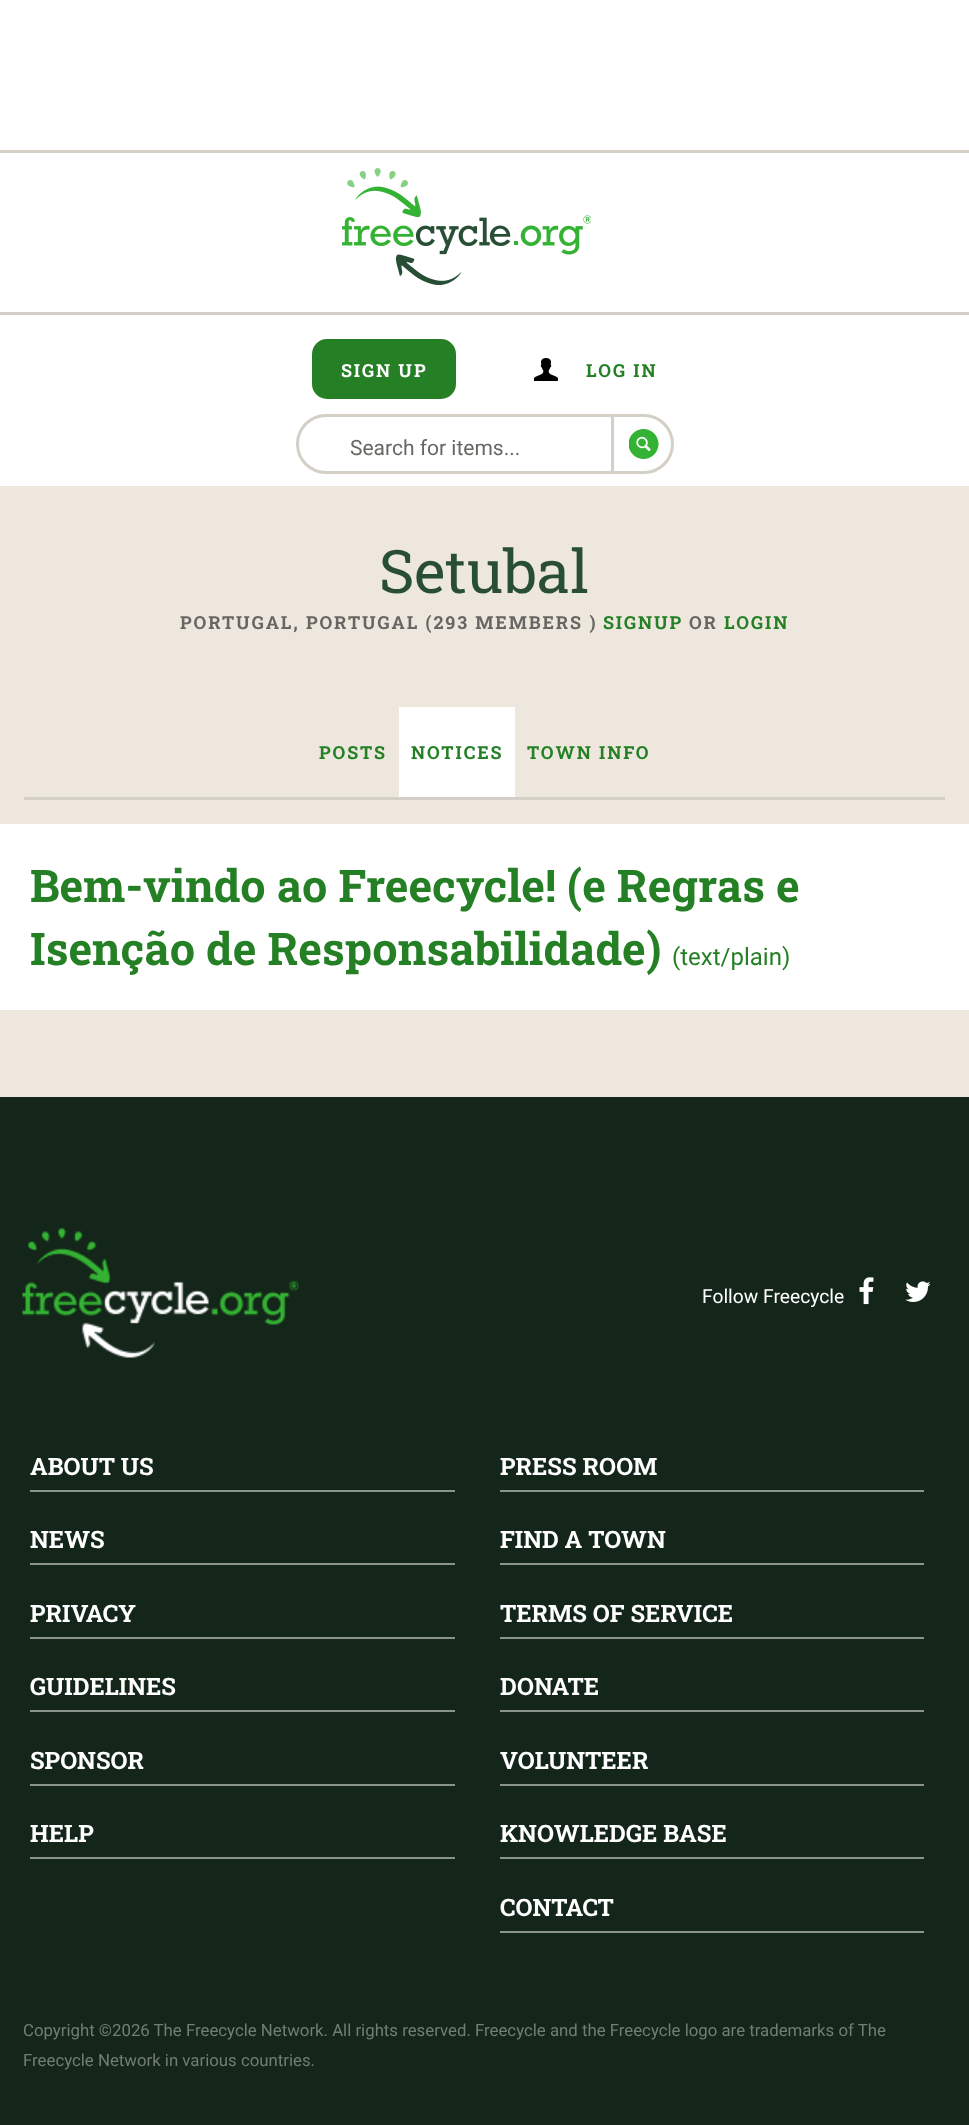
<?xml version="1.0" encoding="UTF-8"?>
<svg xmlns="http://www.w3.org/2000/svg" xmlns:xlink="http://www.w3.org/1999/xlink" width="969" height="2125">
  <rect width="100%" height="100%" fill="#ede7de" />
  <rect width="969" height="486" fill="#ffffff" />
  <rect y="150" width="969" height="3" fill="#d4cfc7" />
  <image x="342" y="168" width="249" height="117" xlink:href="image1.png" />
  <rect y="312" width="969" height="3" fill="#d4cfc7" />
  <rect x="312" y="339" width="144" height="60" rx="15" fill="#258025" />
  <image x="534" y="358" width="24" height="23" xlink:href="image2.png" />
  <rect x="297.5" y="415.5" width="375" height="57" rx="28.5" fill="none" stroke="#d4cfc7" stroke-width="3" />
  <rect x="611" y="417" width="3" height="54" fill="#d4cfc7" />
  <image x="629" y="429" width="30" height="30" xlink:href="image3.png" />
  <rect x="24" y="797" width="921" height="3" fill="#d4cfc7" />
  <rect x="399" y="707" width="116" height="90" fill="#ffffff" />
  <rect y="824" width="969" height="186" fill="#ffffff" />
  <rect y="1097" width="969" height="1028" fill="#14261a" />
  <image x="22" y="1228" width="277" height="130" xlink:href="image4.png" />
  <image x="859" y="1277" width="15" height="28" xlink:href="image5.png" />
  <image x="905" y="1281" width="26" height="21" xlink:href="image6.png" />
  <rect x="30" y="1490" width="425" height="2" fill="#8a938d" />
  <rect x="500" y="1490" width="424" height="2" fill="#8a938d" />
  <rect x="30" y="1563" width="425" height="2" fill="#8a938d" />
  <rect x="500" y="1563" width="424" height="2" fill="#8a938d" />
  <rect x="30" y="1637" width="425" height="2" fill="#8a938d" />
  <rect x="500" y="1637" width="424" height="2" fill="#8a938d" />
  <rect x="30" y="1710" width="425" height="2" fill="#8a938d" />
  <rect x="500" y="1710" width="424" height="2" fill="#8a938d" />
  <rect x="30" y="1784" width="425" height="2" fill="#8a938d" />
  <rect x="500" y="1784" width="424" height="2" fill="#8a938d" />
  <rect x="30" y="1857" width="425" height="2" fill="#8a938d" />
  <rect x="500" y="1857" width="424" height="2" fill="#8a938d" />
  <rect x="500" y="1931" width="424" height="2" fill="#8a938d" />
  <text x="341" y="377" style="font-family: Roboto Slab; font-size: 18px; font-weight: bold; letter-spacing: 1.9px; fill: #ffffff">SIGN UP</text>
  <text x="586" y="377" style="font-family: Roboto Slab; font-size: 18px; font-weight: bold; letter-spacing: 1.9px; fill: #258025">LOG IN</text>
  <text x="350" y="455" style="font-family: Roboto; font-size: 21px; fill: #676662">Search for items...</text>
  <text x="379" y="593" style="font-family: Roboto Slab; font-size: 60px; fill: #284e36">Setubal</text>
  <text x="180" y="629" style="font-family: Roboto Slab; font-size: 18px; font-weight: bold; letter-spacing: 1.9px; fill: #676662">PORTUGAL, PORTUGAL (293 MEMBERS )</text>
  <text x="603" y="629" style="font-family: Roboto Slab; font-size: 18px; font-weight: bold; letter-spacing: 1.9px; fill: #258025">SIGNUP</text>
  <text x="689" y="629" style="font-family: Roboto Slab; font-size: 18px; font-weight: bold; letter-spacing: 1.9px; fill: #676662">OR</text>
  <text x="724" y="629" style="font-family: Roboto Slab; font-size: 18px; font-weight: bold; letter-spacing: 1.9px; fill: #258025">LOGIN</text>
  <text x="319" y="759" style="font-family: Roboto Slab; font-size: 18px; font-weight: bold; letter-spacing: 1.9px; fill: #258025">POSTS</text>
  <text x="411" y="759" style="font-family: Roboto Slab; font-size: 18px; font-weight: bold; letter-spacing: 1.9px; fill: #258025">NOTICES</text>
  <text x="527" y="759" style="font-family: Roboto Slab; font-size: 18px; font-weight: bold; letter-spacing: 1.9px; fill: #258025">TOWN INFO</text>
  <text x="30" y="902" style="font-family: Roboto Slab; font-size: 45px; font-weight: bold; fill: #258025">Bem-vindo ao Freecycle! (e Regras e</text>
  <text x="30" y="965" style="font-family: Roboto Slab; font-size: 45px; font-weight: bold; fill: #258025">Isenção de Responsabilidade)</text>
  <text x="672" y="965" style="font-family: Roboto; font-size: 24px; fill: #258025">(text/plain)</text>
  <text x="702" y="1303" style="font-family: Roboto; font-size: 19.25px; fill: #ffffff">Follow Freecycle</text>
  <text x="30" y="1475" style="font-family: Roboto Slab; font-size: 24px; font-weight: bold; fill: #ffffff">ABOUT US</text>
  <text x="500" y="1475" style="font-family: Roboto Slab; font-size: 24px; font-weight: bold; fill: #ffffff">PRESS ROOM</text>
  <text x="30" y="1548" style="font-family: Roboto Slab; font-size: 24px; font-weight: bold; fill: #ffffff">NEWS</text>
  <text x="500" y="1548" style="font-family: Roboto Slab; font-size: 24px; font-weight: bold; fill: #ffffff">FIND A TOWN</text>
  <text x="30" y="1622" style="font-family: Roboto Slab; font-size: 24px; font-weight: bold; fill: #ffffff">PRIVACY</text>
  <text x="500" y="1622" style="font-family: Roboto Slab; font-size: 24px; font-weight: bold; fill: #ffffff">TERMS OF SERVICE</text>
  <text x="30" y="1695" style="font-family: Roboto Slab; font-size: 24px; font-weight: bold; fill: #ffffff">GUIDELINES</text>
  <text x="500" y="1695" style="font-family: Roboto Slab; font-size: 24px; font-weight: bold; fill: #ffffff">DONATE</text>
  <text x="30" y="1769" style="font-family: Roboto Slab; font-size: 24px; font-weight: bold; fill: #ffffff">SPONSOR</text>
  <text x="500" y="1769" style="font-family: Roboto Slab; font-size: 24px; font-weight: bold; fill: #ffffff">VOLUNTEER</text>
  <text x="30" y="1842" style="font-family: Roboto Slab; font-size: 24px; font-weight: bold; fill: #ffffff">HELP</text>
  <text x="500" y="1842" style="font-family: Roboto Slab; font-size: 24px; font-weight: bold; fill: #ffffff">KNOWLEDGE BASE</text>
  <text x="500" y="1916" style="font-family: Roboto Slab; font-size: 24px; font-weight: bold; fill: #ffffff">CONTACT</text>
  <text x="23" y="2036" style="font-family: Roboto; font-size: 16.8px; fill: #727d76">Copyright ©2026 The Freecycle Network. All rights reserved. Freecycle and the Freecycle logo are trademarks of The</text>
  <text x="23" y="2066" style="font-family: Roboto; font-size: 16.8px; fill: #727d76">Freecycle Network in various countries.</text>
</svg>
